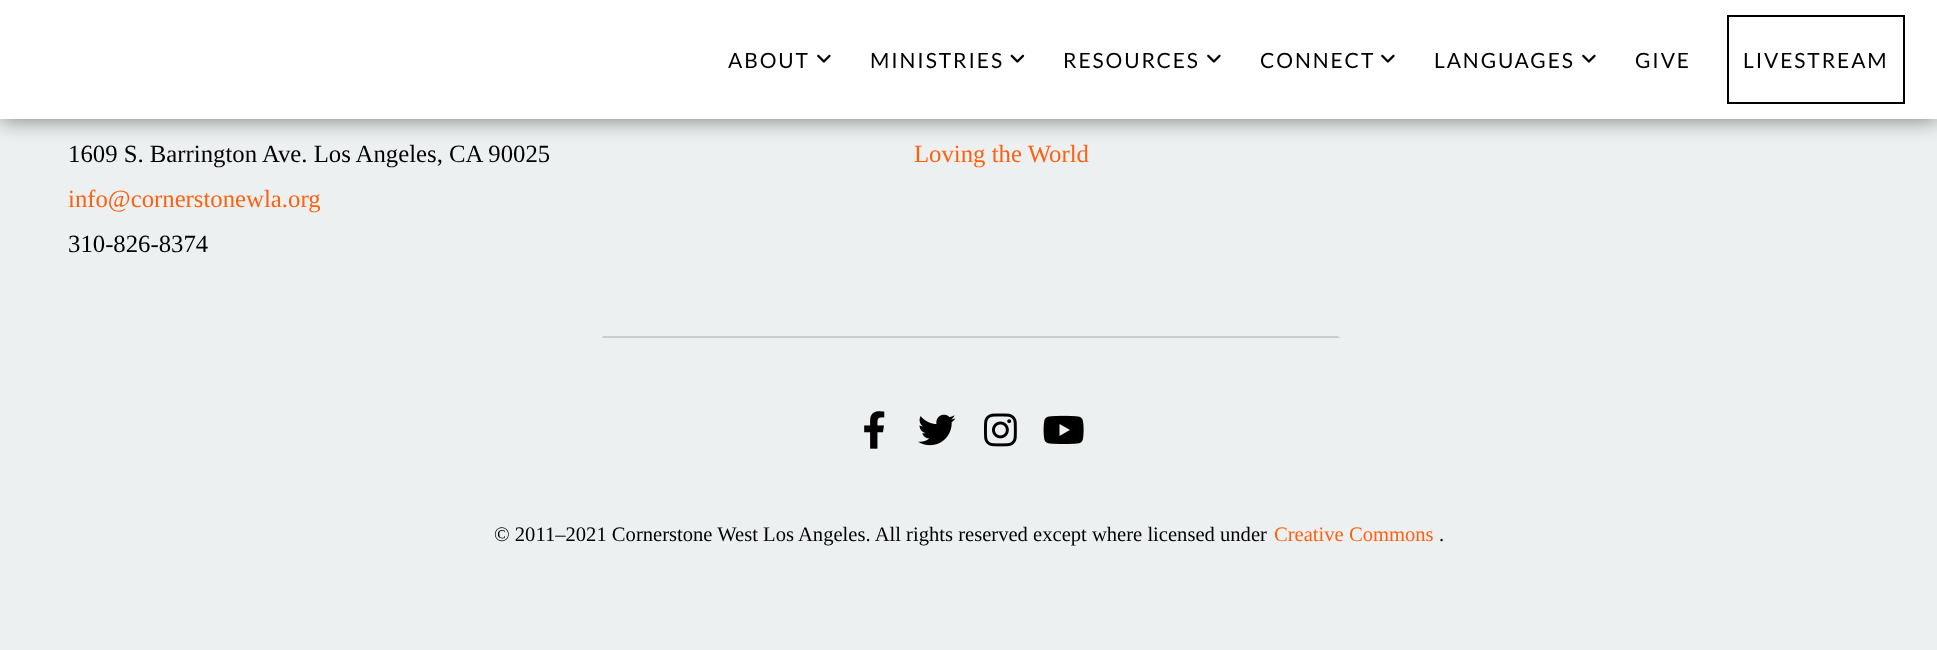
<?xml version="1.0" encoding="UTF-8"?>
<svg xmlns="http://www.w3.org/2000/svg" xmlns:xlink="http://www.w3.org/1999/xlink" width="1937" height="650">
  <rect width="100%" height="100%" fill="#ecf0f1" />
  <rect width="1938" height="119" fill="#000000" fill-opacity="0.5" filter="blur(11px)" />
  <rect width="1937" height="119" fill="#ffffff" />
  <image x="817" y="54" width="14" height="9" xlink:href="image1.png" />
  <image x="1010" y="54" width="15" height="9" xlink:href="image2.png" />
  <image x="1207" y="54" width="14" height="9" xlink:href="image1.png" />
  <image x="1381" y="54" width="14" height="9" xlink:href="image1.png" />
  <image x="1582" y="54" width="14" height="9" xlink:href="image1.png" />
  <rect x="1728" y="16" width="176" height="87" fill="none" stroke="#000000" stroke-width="2" />
  <path d="M 1340 338 h -738 l 1 -2 h 735 z" fill="#cccccc" />
  <image x="864" y="411" width="21" height="38" xlink:href="image3.png" />
  <image x="918" y="414" width="38" height="32" xlink:href="image4.png" />
  <image x="984" y="413" width="33" height="34" xlink:href="image5.png" />
  <image x="1043" y="415" width="41" height="29" xlink:href="image6.png" />
  <text x="728" y="68" style="font-family: Lato; font-size: 21px; letter-spacing: 1.9px; fill: #000000">ABOUT</text>
  <text x="870" y="68" style="font-family: Lato; font-size: 21px; letter-spacing: 1.9px; fill: #000000">MINISTRIES</text>
  <text x="1063" y="68" style="font-family: Lato; font-size: 21px; letter-spacing: 1.9px; fill: #000000">RESOURCES</text>
  <text x="1260" y="68" style="font-family: Lato; font-size: 21px; letter-spacing: 1.9px; fill: #000000">CONNECT</text>
  <text x="1434" y="68" style="font-family: Lato; font-size: 21px; letter-spacing: 1.9px; fill: #000000">LANGUAGES</text>
  <text x="1635" y="68" style="font-family: Lato; font-size: 21px; letter-spacing: 1.9px; fill: #000000">GIVE</text>
  <text x="1743" y="68" style="font-family: Lato; font-size: 21px; letter-spacing: 1.9px; fill: #000000">LIVESTREAM</text>
  <text x="68" y="162" style="font-family: Liberation Serif; font-size: 24.75px; fill: #000000">1609 S. Barrington Ave. Los Angeles, CA 90025</text>
  <text x="68" y="207" style="font-family: Liberation Serif; font-size: 24.75px; fill: #fd6110">info@cornerstonewla.org</text>
  <text x="68" y="252" style="font-family: Liberation Serif; font-size: 24.75px; fill: #000000">310-826-8374</text>
  <text x="914" y="162" style="font-family: Liberation Serif; font-size: 24.75px; fill: #fd6110">Loving the World</text>
  <text x="494" y="541" style="font-family: Liberation Serif; font-size: 20.6px; fill: #000000">© 2011–2021 Cornerstone West Los Angeles. All rights reserved except where licensed under</text>
  <text x="1274" y="541" style="font-family: Liberation Serif; font-size: 20.6px; fill: #fd6110">Creative Commons</text>
  <text x="1439" y="541" style="font-family: Liberation Serif; font-size: 20.6px; fill: #000000">.</text>
</svg>
